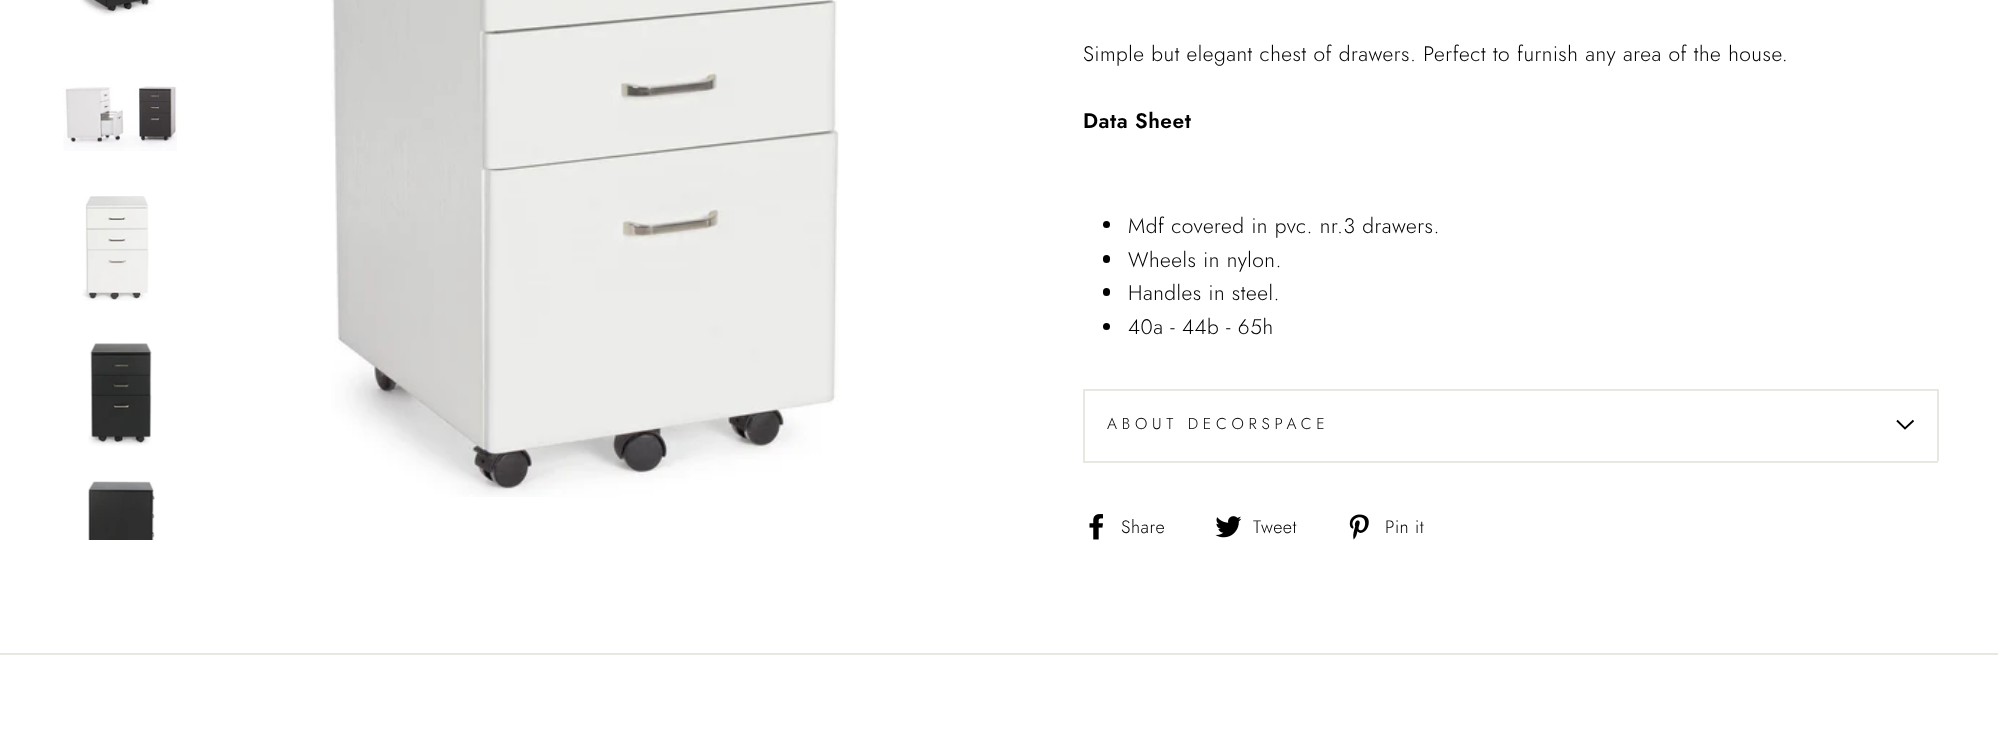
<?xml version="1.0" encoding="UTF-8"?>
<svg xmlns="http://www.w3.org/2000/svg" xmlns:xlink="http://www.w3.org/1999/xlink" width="1998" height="739">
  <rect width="100%" height="100%" fill="#ffffff" />
  <image x="80" y="0" width="75" height="16" xlink:href="image1.png" />
  <image x="63" y="86" width="114" height="65" xlink:href="image2.png" />
  <image x="82" y="196" width="67" height="105" xlink:href="image3.png" />
  <image x="88" y="343" width="64" height="103" xlink:href="image4.png" />
  <image x="88" y="481" width="68" height="59" xlink:href="image5.png" />
  <image x="331" y="0" width="508" height="497" xlink:href="image6.png" />
  <circle cx="1106.5" cy="224.5" r="3.5" fill="#000000" />
  <rect x="1103" y="255" width="7" height="8" rx="3.5" fill="#000000" />
  <rect x="1103" y="288" width="7" height="8" rx="3.5" fill="#000000" />
  <circle cx="1106.5" cy="326.5" r="3.5" fill="#000000" />
  <rect x="1083" y="461" width="855" height="2" fill="#e8e8e1" />
  <rect x="1083" y="389" width="855" height="2" fill="#e8e8e1" />
  <rect x="1937" y="389" width="2" height="72" fill="#e8e8e1" />
  <rect x="1083" y="389" width="2" height="72" fill="#e8e8e1" />
  <path d="M 1897 420.5 l 8 8 l 8.5 -8" fill="none" stroke="#000000" stroke-width="1.9" />
  <image x="1089" y="514" width="14" height="26" xlink:href="image7.png" />
  <image x="1215" y="516" width="27" height="22" xlink:href="image8.png" />
  <image x="1349" y="514" width="20" height="26" xlink:href="image9.png" />
  <rect y="653" width="1998" height="2" fill="#e8e8e1" />
  <text x="1083" y="61" style="font-family: Jost; font-size: 21px; font-weight: 300; letter-spacing: 0.52px; fill: #000000">Simple but elegant chest of drawers. Perfect to furnish any area of the house.</text>
  <text x="1083" y="128" style="font-family: Jost; font-size: 21px; font-weight: 600; letter-spacing: 0.52px; fill: #000000">Data Sheet</text>
  <text x="1128" y="233" style="font-family: Jost; font-size: 21px; font-weight: 300; letter-spacing: 0.52px; fill: #000000">Mdf covered in pvc. nr.3 drawers.</text>
  <text x="1128" y="267" style="font-family: Jost; font-size: 21px; font-weight: 300; letter-spacing: 0.52px; fill: #000000">Wheels in nylon.</text>
  <text x="1128" y="300" style="font-family: Jost; font-size: 21px; font-weight: 300; letter-spacing: 0.52px; fill: #000000">Handles in steel.</text>
  <text x="1128" y="334" style="font-family: Jost; font-size: 21px; font-weight: 300; letter-spacing: 0.52px; fill: #000000">40a - 44b - 65h</text>
  <text x="1107" y="429" style="font-family: Jost; font-size: 15.75px; font-weight: 300; letter-spacing: 4.75px; fill: #000000">ABOUT DECORSPACE</text>
  <text x="1121" y="533" style="font-family: Jost; font-size: 18px; font-weight: 300; letter-spacing: 0.52px; fill: #000000">Share</text>
  <text x="1253" y="533" style="font-family: Jost; font-size: 18px; font-weight: 300; letter-spacing: 0.52px; fill: #000000">Tweet</text>
  <text x="1385" y="533" style="font-family: Jost; font-size: 18px; font-weight: 300; letter-spacing: 0.52px; fill: #000000">Pin it</text>
</svg>
